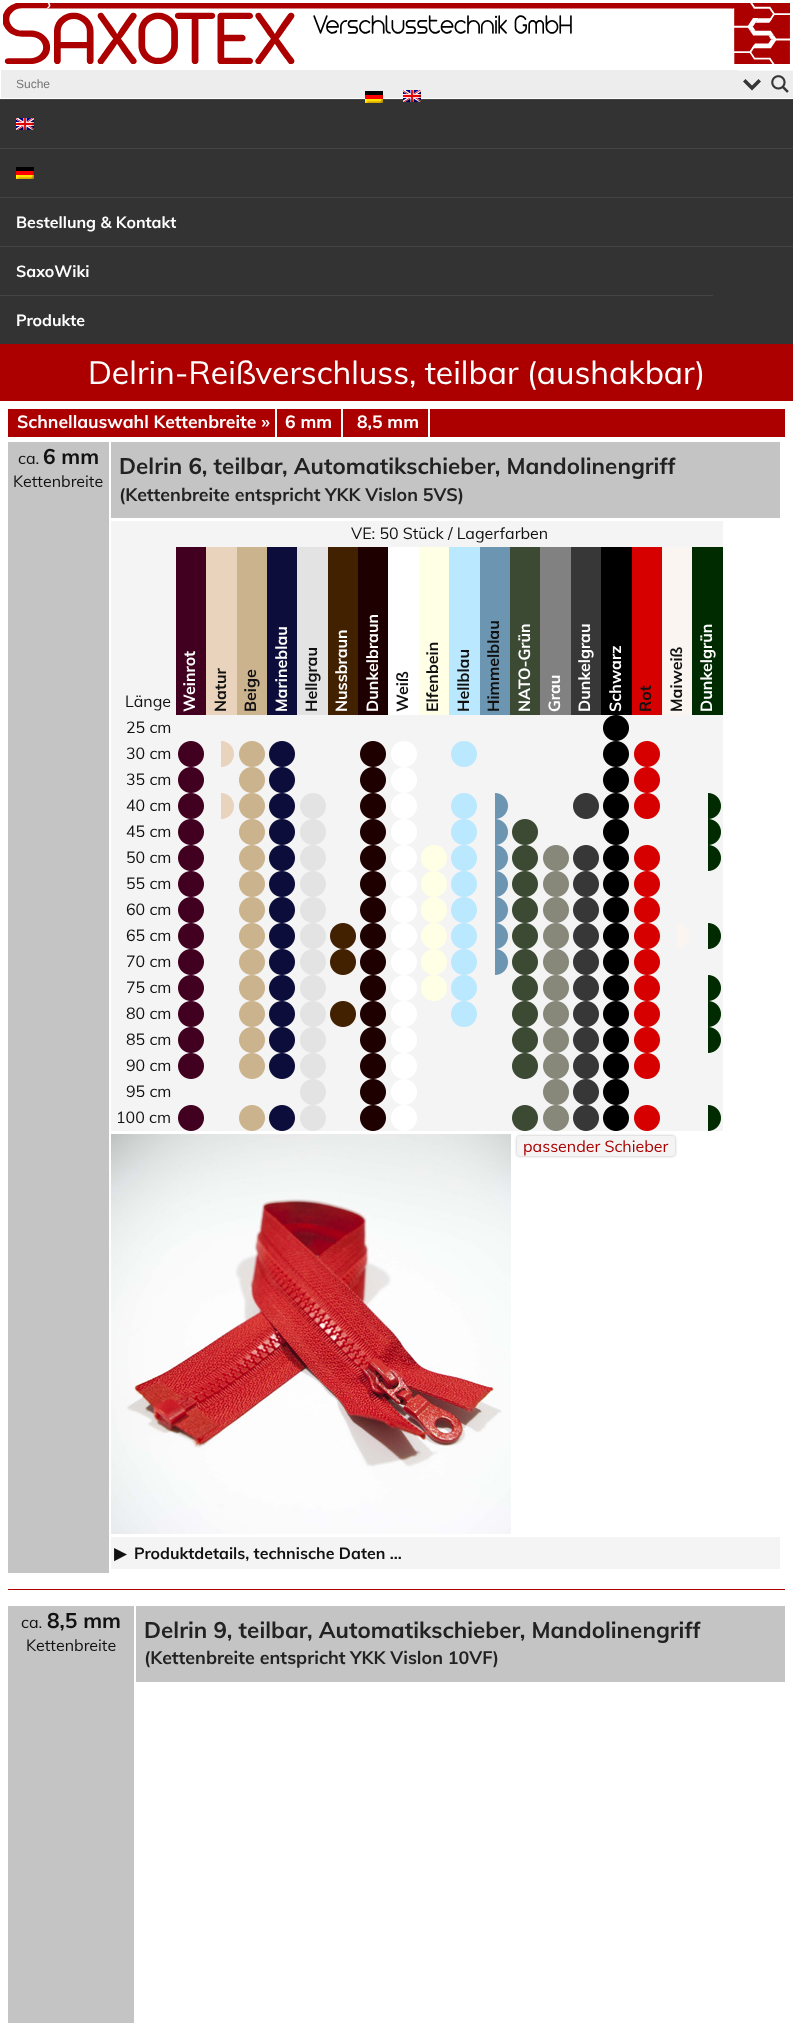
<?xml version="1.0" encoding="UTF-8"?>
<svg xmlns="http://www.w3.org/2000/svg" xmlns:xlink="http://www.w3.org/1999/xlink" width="793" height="2023">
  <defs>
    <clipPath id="clip1"><rect x="766" y="70" width="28" height="28" /></clipPath>
  </defs>
  <rect width="100%" height="100%" fill="#ffffff" />
  <image x="3" y="3" width="787" height="61" xlink:href="image1.png" />
  <rect x="1" y="70" width="792" height="28" fill="#ededed" />
  <rect y="100" width="793" height="244" fill="#333333" />
  <rect y="99" width="793" height="1" fill="#444444" />
  <image x="365" y="91" width="18" height="12" xlink:href="image2.png" />
  <image x="403" y="90" width="18" height="12" xlink:href="image3.png" />
  <rect x="738" y="70" width="28" height="1" fill="#f9f9f9" />
  <path d="M 758.5 79 l 2.5 2.5 l -9 9 l -9 -9 l 2.5 -2.5 l 6.5 6.5 z" fill="#363636" />
  <g clip-path="url(#clip1)">
    <path d="M 667 -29 h 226 v 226 h -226 z m 98 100 h 28 v 28 h -28 z" fill="#f9f9f9" fill-rule="evenodd" />
  </g>
  <image x="771" y="75" width="18" height="18" xlink:href="image4.png" />
  <image x="16" y="118" width="18" height="12" xlink:href="image3.png" />
  <rect y="148" width="793" height="1" fill="#444444" />
  <image x="16" y="167" width="18" height="12" xlink:href="image2.png" />
  <rect y="197" width="793" height="1" fill="#444444" />
  <rect y="246" width="793" height="1" fill="#444444" />
  <rect y="295" width="713" height="1" fill="#444444" />
  <rect y="344" width="793" height="57" fill="#ac0000" />
  <rect x="8" y="409" width="777" height="28" fill="#ac0000" />
  <rect x="341" y="405" width="2" height="33" fill="#ffffff" />
  <rect x="275" y="405" width="2" height="33" fill="#ffffff" />
  <rect x="428" y="405" width="2" height="33" fill="#ffffff" />
  <rect x="8" y="1589" width="777" height="1" fill="#ac0000" />
  <rect x="8" y="442" width="101" height="1131" fill="#c4c4c4" />
  <rect x="111" y="442" width="669" height="76" fill="#c4c4c4" />
  <rect x="111" y="521" width="612" height="26" fill="#f4f4f4" />
  <rect x="111" y="547" width="65" height="584" fill="#f4f4f4" />
  <rect x="176" y="547" width="30" height="168" fill="#420021" />
  <rect x="206" y="547" width="31" height="168" fill="#e9d3bd" />
  <rect x="237" y="547" width="30" height="168" fill="#cbb38d" />
  <rect x="267" y="547" width="30" height="168" fill="#0d0d3b" />
  <rect x="297" y="547" width="31" height="168" fill="#e3e3e3" />
  <rect x="328" y="547" width="30" height="168" fill="#422100" />
  <rect x="358" y="547" width="30" height="168" fill="#1e0000" />
  <rect x="419" y="547" width="30" height="168" fill="#ffffe5" />
  <rect x="449" y="547" width="31" height="168" fill="#b9e8ff" />
  <rect x="480" y="547" width="30" height="168" fill="#6b95b1" />
  <rect x="510" y="547" width="30" height="168" fill="#3c4a34" />
  <rect x="540" y="547" width="31" height="168" fill="#818181" />
  <rect x="571" y="547" width="30" height="168" fill="#373737" />
  <rect x="601" y="547" width="31" height="168" fill="#000000" />
  <rect x="632" y="547" width="30" height="168" fill="#d60000" />
  <rect x="662" y="547" width="30" height="168" fill="#faf5f0" />
  <rect x="692" y="547" width="31" height="168" fill="#002a00" />
  <rect x="176" y="715" width="547" height="26" fill="#f4f4f4" />
  <image x="603" y="715" width="26" height="26" xlink:href="image5.png" />
  <rect x="176" y="741" width="547" height="26" fill="#f4f4f4" />
  <image x="178" y="741" width="26" height="26" xlink:href="image6.png" />
  <image x="221" y="741" width="13" height="26" xlink:href="image7.png" />
  <image x="239" y="741" width="26" height="26" xlink:href="image8.png" />
  <image x="269" y="741" width="26" height="26" xlink:href="image9.png" />
  <image x="360" y="741" width="26" height="26" xlink:href="image10.png" />
  <image x="391" y="741" width="26" height="26" xlink:href="image11.png" />
  <image x="451" y="741" width="26" height="26" xlink:href="image12.png" />
  <image x="603" y="741" width="26" height="26" xlink:href="image5.png" />
  <image x="634" y="741" width="26" height="26" xlink:href="image13.png" />
  <rect x="176" y="767" width="547" height="26" fill="#f4f4f4" />
  <image x="178" y="767" width="26" height="26" xlink:href="image6.png" />
  <image x="239" y="767" width="26" height="26" xlink:href="image8.png" />
  <image x="269" y="767" width="26" height="26" xlink:href="image9.png" />
  <image x="360" y="767" width="26" height="26" xlink:href="image10.png" />
  <image x="391" y="767" width="26" height="26" xlink:href="image11.png" />
  <image x="603" y="767" width="26" height="26" xlink:href="image5.png" />
  <image x="634" y="767" width="26" height="26" xlink:href="image13.png" />
  <rect x="176" y="793" width="547" height="26" fill="#f4f4f4" />
  <image x="178" y="793" width="26" height="26" xlink:href="image6.png" />
  <image x="221" y="793" width="13" height="26" xlink:href="image7.png" />
  <image x="239" y="793" width="26" height="26" xlink:href="image8.png" />
  <image x="269" y="793" width="26" height="26" xlink:href="image9.png" />
  <image x="300" y="793" width="26" height="26" xlink:href="image14.png" />
  <image x="360" y="793" width="26" height="26" xlink:href="image10.png" />
  <image x="391" y="793" width="26" height="26" xlink:href="image11.png" />
  <image x="451" y="793" width="26" height="26" xlink:href="image12.png" />
  <image x="495" y="793" width="13" height="26" xlink:href="image15.png" />
  <image x="573" y="793" width="26" height="26" xlink:href="image16.png" />
  <image x="603" y="793" width="26" height="26" xlink:href="image5.png" />
  <image x="634" y="793" width="26" height="26" xlink:href="image13.png" />
  <image x="708" y="793" width="13" height="26" xlink:href="image17.png" />
  <rect x="176" y="819" width="547" height="26" fill="#f4f4f4" />
  <image x="178" y="819" width="26" height="26" xlink:href="image6.png" />
  <image x="239" y="819" width="26" height="26" xlink:href="image8.png" />
  <image x="269" y="819" width="26" height="26" xlink:href="image9.png" />
  <image x="300" y="819" width="26" height="26" xlink:href="image14.png" />
  <image x="360" y="819" width="26" height="26" xlink:href="image10.png" />
  <image x="391" y="819" width="26" height="26" xlink:href="image11.png" />
  <image x="451" y="819" width="26" height="26" xlink:href="image12.png" />
  <image x="495" y="819" width="13" height="26" xlink:href="image15.png" />
  <image x="512" y="819" width="26" height="26" xlink:href="image18.png" />
  <image x="603" y="819" width="26" height="26" xlink:href="image5.png" />
  <image x="708" y="819" width="13" height="26" xlink:href="image17.png" />
  <rect x="176" y="845" width="547" height="26" fill="#f4f4f4" />
  <image x="178" y="845" width="26" height="26" xlink:href="image6.png" />
  <image x="239" y="845" width="26" height="26" xlink:href="image8.png" />
  <image x="269" y="845" width="26" height="26" xlink:href="image9.png" />
  <image x="300" y="845" width="26" height="26" xlink:href="image14.png" />
  <image x="360" y="845" width="26" height="26" xlink:href="image10.png" />
  <image x="391" y="845" width="26" height="26" xlink:href="image11.png" />
  <image x="421" y="845" width="26" height="26" xlink:href="image19.png" />
  <image x="451" y="845" width="26" height="26" xlink:href="image12.png" />
  <image x="495" y="845" width="13" height="26" xlink:href="image15.png" />
  <image x="512" y="845" width="26" height="26" xlink:href="image18.png" />
  <image x="543" y="845" width="26" height="26" xlink:href="image20.png" />
  <image x="573" y="845" width="26" height="26" xlink:href="image16.png" />
  <image x="603" y="845" width="26" height="26" xlink:href="image5.png" />
  <image x="634" y="845" width="26" height="26" xlink:href="image13.png" />
  <image x="708" y="845" width="13" height="26" xlink:href="image17.png" />
  <rect x="176" y="871" width="547" height="26" fill="#f4f4f4" />
  <image x="178" y="871" width="26" height="26" xlink:href="image6.png" />
  <image x="239" y="871" width="26" height="26" xlink:href="image8.png" />
  <image x="269" y="871" width="26" height="26" xlink:href="image9.png" />
  <image x="300" y="871" width="26" height="26" xlink:href="image14.png" />
  <image x="360" y="871" width="26" height="26" xlink:href="image10.png" />
  <image x="391" y="871" width="26" height="26" xlink:href="image11.png" />
  <image x="421" y="871" width="26" height="26" xlink:href="image19.png" />
  <image x="451" y="871" width="26" height="26" xlink:href="image12.png" />
  <image x="495" y="871" width="13" height="26" xlink:href="image15.png" />
  <image x="512" y="871" width="26" height="26" xlink:href="image18.png" />
  <image x="543" y="871" width="26" height="26" xlink:href="image20.png" />
  <image x="573" y="871" width="26" height="26" xlink:href="image16.png" />
  <image x="603" y="871" width="26" height="26" xlink:href="image5.png" />
  <image x="634" y="871" width="26" height="26" xlink:href="image13.png" />
  <rect x="176" y="897" width="547" height="26" fill="#f4f4f4" />
  <image x="178" y="897" width="26" height="26" xlink:href="image6.png" />
  <image x="239" y="897" width="26" height="26" xlink:href="image8.png" />
  <image x="269" y="897" width="26" height="26" xlink:href="image9.png" />
  <image x="300" y="897" width="26" height="26" xlink:href="image14.png" />
  <image x="360" y="897" width="26" height="26" xlink:href="image10.png" />
  <image x="391" y="897" width="26" height="26" xlink:href="image11.png" />
  <image x="421" y="897" width="26" height="26" xlink:href="image19.png" />
  <image x="451" y="897" width="26" height="26" xlink:href="image12.png" />
  <image x="495" y="897" width="13" height="26" xlink:href="image15.png" />
  <image x="512" y="897" width="26" height="26" xlink:href="image18.png" />
  <image x="543" y="897" width="26" height="26" xlink:href="image20.png" />
  <image x="573" y="897" width="26" height="26" xlink:href="image16.png" />
  <image x="603" y="897" width="26" height="26" xlink:href="image5.png" />
  <image x="634" y="897" width="26" height="26" xlink:href="image13.png" />
  <rect x="176" y="923" width="547" height="26" fill="#f4f4f4" />
  <image x="178" y="923" width="26" height="26" xlink:href="image6.png" />
  <image x="239" y="923" width="26" height="26" xlink:href="image8.png" />
  <image x="269" y="923" width="26" height="26" xlink:href="image9.png" />
  <image x="300" y="923" width="26" height="26" xlink:href="image14.png" />
  <image x="330" y="923" width="26" height="26" xlink:href="image21.png" />
  <image x="360" y="923" width="26" height="26" xlink:href="image10.png" />
  <image x="391" y="923" width="26" height="26" xlink:href="image11.png" />
  <image x="421" y="923" width="26" height="26" xlink:href="image19.png" />
  <image x="451" y="923" width="26" height="26" xlink:href="image12.png" />
  <image x="495" y="923" width="13" height="26" xlink:href="image15.png" />
  <image x="512" y="923" width="26" height="26" xlink:href="image18.png" />
  <image x="543" y="923" width="26" height="26" xlink:href="image20.png" />
  <image x="573" y="923" width="26" height="26" xlink:href="image16.png" />
  <image x="603" y="923" width="26" height="26" xlink:href="image5.png" />
  <image x="634" y="923" width="26" height="26" xlink:href="image13.png" />
  <image x="677" y="923" width="13" height="26" xlink:href="image22.png" />
  <image x="708" y="923" width="13" height="26" xlink:href="image17.png" />
  <rect x="176" y="949" width="547" height="26" fill="#f4f4f4" />
  <image x="178" y="949" width="26" height="26" xlink:href="image6.png" />
  <image x="239" y="949" width="26" height="26" xlink:href="image8.png" />
  <image x="269" y="949" width="26" height="26" xlink:href="image9.png" />
  <image x="300" y="949" width="26" height="26" xlink:href="image14.png" />
  <image x="330" y="949" width="26" height="26" xlink:href="image21.png" />
  <image x="360" y="949" width="26" height="26" xlink:href="image10.png" />
  <image x="391" y="949" width="26" height="26" xlink:href="image11.png" />
  <image x="421" y="949" width="26" height="26" xlink:href="image19.png" />
  <image x="451" y="949" width="26" height="26" xlink:href="image12.png" />
  <image x="495" y="949" width="13" height="26" xlink:href="image15.png" />
  <image x="512" y="949" width="26" height="26" xlink:href="image18.png" />
  <image x="543" y="949" width="26" height="26" xlink:href="image20.png" />
  <image x="573" y="949" width="26" height="26" xlink:href="image16.png" />
  <image x="603" y="949" width="26" height="26" xlink:href="image5.png" />
  <image x="634" y="949" width="26" height="26" xlink:href="image13.png" />
  <rect x="176" y="975" width="547" height="26" fill="#f4f4f4" />
  <image x="178" y="975" width="26" height="26" xlink:href="image6.png" />
  <image x="239" y="975" width="26" height="26" xlink:href="image8.png" />
  <image x="269" y="975" width="26" height="26" xlink:href="image9.png" />
  <image x="300" y="975" width="26" height="26" xlink:href="image14.png" />
  <image x="360" y="975" width="26" height="26" xlink:href="image10.png" />
  <image x="391" y="975" width="26" height="26" xlink:href="image11.png" />
  <image x="421" y="975" width="26" height="26" xlink:href="image19.png" />
  <image x="451" y="975" width="26" height="26" xlink:href="image12.png" />
  <image x="512" y="975" width="26" height="26" xlink:href="image18.png" />
  <image x="543" y="975" width="26" height="26" xlink:href="image20.png" />
  <image x="573" y="975" width="26" height="26" xlink:href="image16.png" />
  <image x="603" y="975" width="26" height="26" xlink:href="image5.png" />
  <image x="634" y="975" width="26" height="26" xlink:href="image13.png" />
  <image x="708" y="975" width="13" height="26" xlink:href="image17.png" />
  <rect x="176" y="1001" width="547" height="26" fill="#f4f4f4" />
  <image x="178" y="1001" width="26" height="26" xlink:href="image6.png" />
  <image x="239" y="1001" width="26" height="26" xlink:href="image8.png" />
  <image x="269" y="1001" width="26" height="26" xlink:href="image9.png" />
  <image x="300" y="1001" width="26" height="26" xlink:href="image14.png" />
  <image x="330" y="1001" width="26" height="26" xlink:href="image21.png" />
  <image x="360" y="1001" width="26" height="26" xlink:href="image10.png" />
  <image x="391" y="1001" width="26" height="26" xlink:href="image11.png" />
  <image x="451" y="1001" width="26" height="26" xlink:href="image12.png" />
  <image x="512" y="1001" width="26" height="26" xlink:href="image18.png" />
  <image x="543" y="1001" width="26" height="26" xlink:href="image20.png" />
  <image x="573" y="1001" width="26" height="26" xlink:href="image16.png" />
  <image x="603" y="1001" width="26" height="26" xlink:href="image5.png" />
  <image x="634" y="1001" width="26" height="26" xlink:href="image13.png" />
  <image x="708" y="1001" width="13" height="26" xlink:href="image17.png" />
  <rect x="176" y="1027" width="547" height="26" fill="#f4f4f4" />
  <image x="178" y="1027" width="26" height="26" xlink:href="image6.png" />
  <image x="239" y="1027" width="26" height="26" xlink:href="image8.png" />
  <image x="269" y="1027" width="26" height="26" xlink:href="image9.png" />
  <image x="300" y="1027" width="26" height="26" xlink:href="image14.png" />
  <image x="360" y="1027" width="26" height="26" xlink:href="image10.png" />
  <image x="391" y="1027" width="26" height="26" xlink:href="image11.png" />
  <image x="512" y="1027" width="26" height="26" xlink:href="image18.png" />
  <image x="543" y="1027" width="26" height="26" xlink:href="image20.png" />
  <image x="573" y="1027" width="26" height="26" xlink:href="image16.png" />
  <image x="603" y="1027" width="26" height="26" xlink:href="image5.png" />
  <image x="634" y="1027" width="26" height="26" xlink:href="image13.png" />
  <image x="708" y="1027" width="13" height="26" xlink:href="image17.png" />
  <rect x="176" y="1053" width="547" height="26" fill="#f4f4f4" />
  <image x="178" y="1053" width="26" height="26" xlink:href="image6.png" />
  <image x="239" y="1053" width="26" height="26" xlink:href="image8.png" />
  <image x="269" y="1053" width="26" height="26" xlink:href="image9.png" />
  <image x="300" y="1053" width="26" height="26" xlink:href="image14.png" />
  <image x="360" y="1053" width="26" height="26" xlink:href="image10.png" />
  <image x="391" y="1053" width="26" height="26" xlink:href="image11.png" />
  <image x="512" y="1053" width="26" height="26" xlink:href="image18.png" />
  <image x="543" y="1053" width="26" height="26" xlink:href="image20.png" />
  <image x="573" y="1053" width="26" height="26" xlink:href="image16.png" />
  <image x="603" y="1053" width="26" height="26" xlink:href="image5.png" />
  <image x="634" y="1053" width="26" height="26" xlink:href="image13.png" />
  <rect x="176" y="1079" width="547" height="26" fill="#f4f4f4" />
  <image x="300" y="1079" width="26" height="26" xlink:href="image14.png" />
  <image x="360" y="1079" width="26" height="26" xlink:href="image10.png" />
  <image x="391" y="1079" width="26" height="26" xlink:href="image11.png" />
  <image x="543" y="1079" width="26" height="26" xlink:href="image20.png" />
  <image x="573" y="1079" width="26" height="26" xlink:href="image16.png" />
  <image x="603" y="1079" width="26" height="26" xlink:href="image5.png" />
  <rect x="176" y="1105" width="547" height="26" fill="#f4f4f4" />
  <image x="178" y="1105" width="26" height="26" xlink:href="image6.png" />
  <image x="239" y="1105" width="26" height="26" xlink:href="image8.png" />
  <image x="269" y="1105" width="26" height="26" xlink:href="image9.png" />
  <image x="300" y="1105" width="26" height="26" xlink:href="image14.png" />
  <image x="360" y="1105" width="26" height="26" xlink:href="image10.png" />
  <image x="391" y="1105" width="26" height="26" xlink:href="image11.png" />
  <image x="512" y="1105" width="26" height="26" xlink:href="image18.png" />
  <image x="543" y="1105" width="26" height="26" xlink:href="image20.png" />
  <image x="573" y="1105" width="26" height="26" xlink:href="image16.png" />
  <image x="603" y="1105" width="26" height="26" xlink:href="image5.png" />
  <image x="634" y="1105" width="26" height="26" xlink:href="image13.png" />
  <image x="708" y="1105" width="13" height="26" xlink:href="image17.png" />
  <image x="111" y="1134" width="400" height="400" xlink:href="image23.png" />
  <rect x="517" y="1136" width="158" height="20" rx="3" fill="#b4b4b4" filter="blur(1.5px)" />
  <rect x="517" y="1136" width="158" height="20" rx="3" fill="#f4f4f4" />
  <rect x="111" y="1537" width="669" height="32" fill="#f4f4f4" />
  <rect x="8" y="1606" width="126" height="417" fill="#c4c4c4" />
  <rect x="136" y="1606" width="649" height="76" fill="#c4c4c4" />
  <text x="16" y="88" style="font-family: Liberation Sans; font-size: 12px; fill: #747474">Suche</text>
  <text x="16" y="228" style="font-family: Muli; font-size: 16px; font-weight: bold; fill: #ffffff">Bestellung &amp; Kontakt</text>
  <text x="16" y="277" style="font-family: Muli; font-size: 16px; font-weight: bold; fill: #ffffff">SaxoWiki</text>
  <text x="16" y="326" style="font-family: Muli; font-size: 16px; font-weight: bold; fill: #ffffff">Produkte</text>
  <text x="88" y="384" style="font-family: Muli; font-size: 32px; fill: #ffffff">Delrin-Reißverschluss, teilbar (aushakbar)</text>
  <text x="17" y="428" style="font-family: Muli; font-size: 17.6px; font-weight: bold; fill: #ffffff">Schnellauswahl Kettenbreite »</text>
  <text x="285" y="428" style="font-family: Muli; font-size: 17.6px; font-weight: bold; fill: #ffffff">6 mm</text>
  <text x="357" y="428" style="font-family: Muli; font-size: 17.6px; font-weight: bold; fill: #ffffff">8,5 mm</text>
  <text x="18" y="464" style="font-family: Muli; font-size: 16px; fill: #111111">ca.</text>
  <text x="43" y="464" style="font-family: Muli; font-size: 21px; font-weight: bold; fill: #111111">6 mm</text>
  <text x="13" y="487" style="font-family: Muli; font-size: 16px; fill: #111111">Kettenbreite</text>
  <text x="119" y="474" style="font-family: Muli; font-size: 22.4px; font-weight: bold; fill: #222222">Delrin 6, teilbar, Automatikschieber, Mandolinengriff</text>
  <text x="119" y="501" style="font-family: Muli; font-size: 17.9px; font-weight: bold; fill: #222222">(Kettenbreite entspricht YKK Vislon 5VS)</text>
  <text x="351" y="539" style="font-family: Muli; font-size: 16px; fill: #111111">VE: 50 Stück / Lagerfarben</text>
  <text x="125" y="707" style="font-family: Muli; font-size: 16px; fill: #111111">Länge</text>
  <text x="195" y="712" transform="rotate(-90 195 712)" style="font-family: Muli; font-size: 16px; font-weight: bold; fill: #ffffff">Weinrot</text>
  <text x="226" y="712" transform="rotate(-90 226 712)" style="font-family: Muli; font-size: 16px; font-weight: bold; fill: #111111">Natur</text>
  <text x="256" y="712" transform="rotate(-90 256 712)" style="font-family: Muli; font-size: 16px; font-weight: bold; fill: #111111">Beige</text>
  <text x="287" y="712" transform="rotate(-90 287 712)" style="font-family: Muli; font-size: 16px; font-weight: bold; fill: #ffffff">Marineblau</text>
  <text x="317" y="712" transform="rotate(-90 317 712)" style="font-family: Muli; font-size: 16px; font-weight: bold; fill: #111111">Hellgrau</text>
  <text x="347" y="712" transform="rotate(-90 347 712)" style="font-family: Muli; font-size: 16px; font-weight: bold; fill: #ffffff">Nussbraun</text>
  <text x="378" y="712" transform="rotate(-90 378 712)" style="font-family: Muli; font-size: 16px; font-weight: bold; fill: #ffffff">Dunkelbraun</text>
  <text x="408" y="712" transform="rotate(-90 408 712)" style="font-family: Muli; font-size: 16px; font-weight: bold; fill: #111111">Weiß</text>
  <text x="438" y="712" transform="rotate(-90 438 712)" style="font-family: Muli; font-size: 16px; font-weight: bold; fill: #111111">Elfenbein</text>
  <text x="469" y="712" transform="rotate(-90 469 712)" style="font-family: Muli; font-size: 16px; font-weight: bold; fill: #111111">Hellblau</text>
  <text x="499" y="712" transform="rotate(-90 499 712)" style="font-family: Muli; font-size: 16px; font-weight: bold; fill: #111111">Himmelblau</text>
  <text x="530" y="712" transform="rotate(-90 530 712)" style="font-family: Muli; font-size: 16px; font-weight: bold; fill: #ffffff">NATO-Grün</text>
  <text x="560" y="712" transform="rotate(-90 560 712)" style="font-family: Muli; font-size: 16px; font-weight: bold; fill: #ffffff">Grau</text>
  <text x="590" y="712" transform="rotate(-90 590 712)" style="font-family: Muli; font-size: 16px; font-weight: bold; fill: #ffffff">Dunkelgrau</text>
  <text x="621" y="712" transform="rotate(-90 621 712)" style="font-family: Muli; font-size: 16px; font-weight: bold; fill: #ffffff">Schwarz</text>
  <text x="651" y="712" transform="rotate(-90 651 712)" style="font-family: Muli; font-size: 16px; font-weight: bold; fill: #111111">Rot</text>
  <text x="682" y="712" transform="rotate(-90 682 712)" style="font-family: Muli; font-size: 16px; font-weight: bold; fill: #111111">Maiweiß</text>
  <text x="712" y="712" transform="rotate(-90 712 712)" style="font-family: Muli; font-size: 16px; font-weight: bold; fill: #ffffff">Dunkelgrün</text>
  <text x="126" y="733" style="font-family: Muli; font-size: 16px; fill: #111111">25 cm</text>
  <text x="126" y="759" style="font-family: Muli; font-size: 16px; fill: #111111">30 cm</text>
  <text x="126" y="785" style="font-family: Muli; font-size: 16px; fill: #111111">35 cm</text>
  <text x="126" y="811" style="font-family: Muli; font-size: 16px; fill: #111111">40 cm</text>
  <text x="126" y="837" style="font-family: Muli; font-size: 16px; fill: #111111">45 cm</text>
  <text x="126" y="863" style="font-family: Muli; font-size: 16px; fill: #111111">50 cm</text>
  <text x="126" y="889" style="font-family: Muli; font-size: 16px; fill: #111111">55 cm</text>
  <text x="126" y="915" style="font-family: Muli; font-size: 16px; fill: #111111">60 cm</text>
  <text x="126" y="941" style="font-family: Muli; font-size: 16px; fill: #111111">65 cm</text>
  <text x="126" y="967" style="font-family: Muli; font-size: 16px; fill: #111111">70 cm</text>
  <text x="126" y="993" style="font-family: Muli; font-size: 16px; fill: #111111">75 cm</text>
  <text x="126" y="1019" style="font-family: Muli; font-size: 16px; fill: #111111">80 cm</text>
  <text x="126" y="1045" style="font-family: Muli; font-size: 16px; fill: #111111">85 cm</text>
  <text x="126" y="1071" style="font-family: Muli; font-size: 16px; fill: #111111">90 cm</text>
  <text x="126" y="1097" style="font-family: Muli; font-size: 16px; fill: #111111">95 cm</text>
  <text x="116" y="1123" style="font-family: Muli; font-size: 16px; fill: #111111">100 cm</text>
  <text x="523" y="1152" style="font-family: Muli; font-size: 16px; fill: #ac0000">passender Schieber</text>
  <text x="114" y="1559" style="font-family: DejaVu Sans; font-size: 16px; font-weight: bold; fill: #111111">▶</text>
  <text x="134" y="1559" style="font-family: Muli; font-size: 16px; font-weight: bold; fill: #111111">Produktdetails, technische Daten ...</text>
  <text x="21" y="1628" style="font-family: Muli; font-size: 16px; fill: #111111">ca.</text>
  <text x="47" y="1628" style="font-family: Muli; font-size: 21px; font-weight: bold; fill: #111111">8,5 mm</text>
  <text x="26" y="1651" style="font-family: Muli; font-size: 16px; fill: #111111">Kettenbreite</text>
  <text x="144" y="1638" style="font-family: Muli; font-size: 22.4px; font-weight: bold; fill: #222222">Delrin 9, teilbar, Automatikschieber, Mandolinengriff</text>
  <text x="144" y="1664" style="font-family: Muli; font-size: 17.9px; font-weight: bold; fill: #222222">(Kettenbreite entspricht YKK Vislon 10VF)</text>
</svg>
